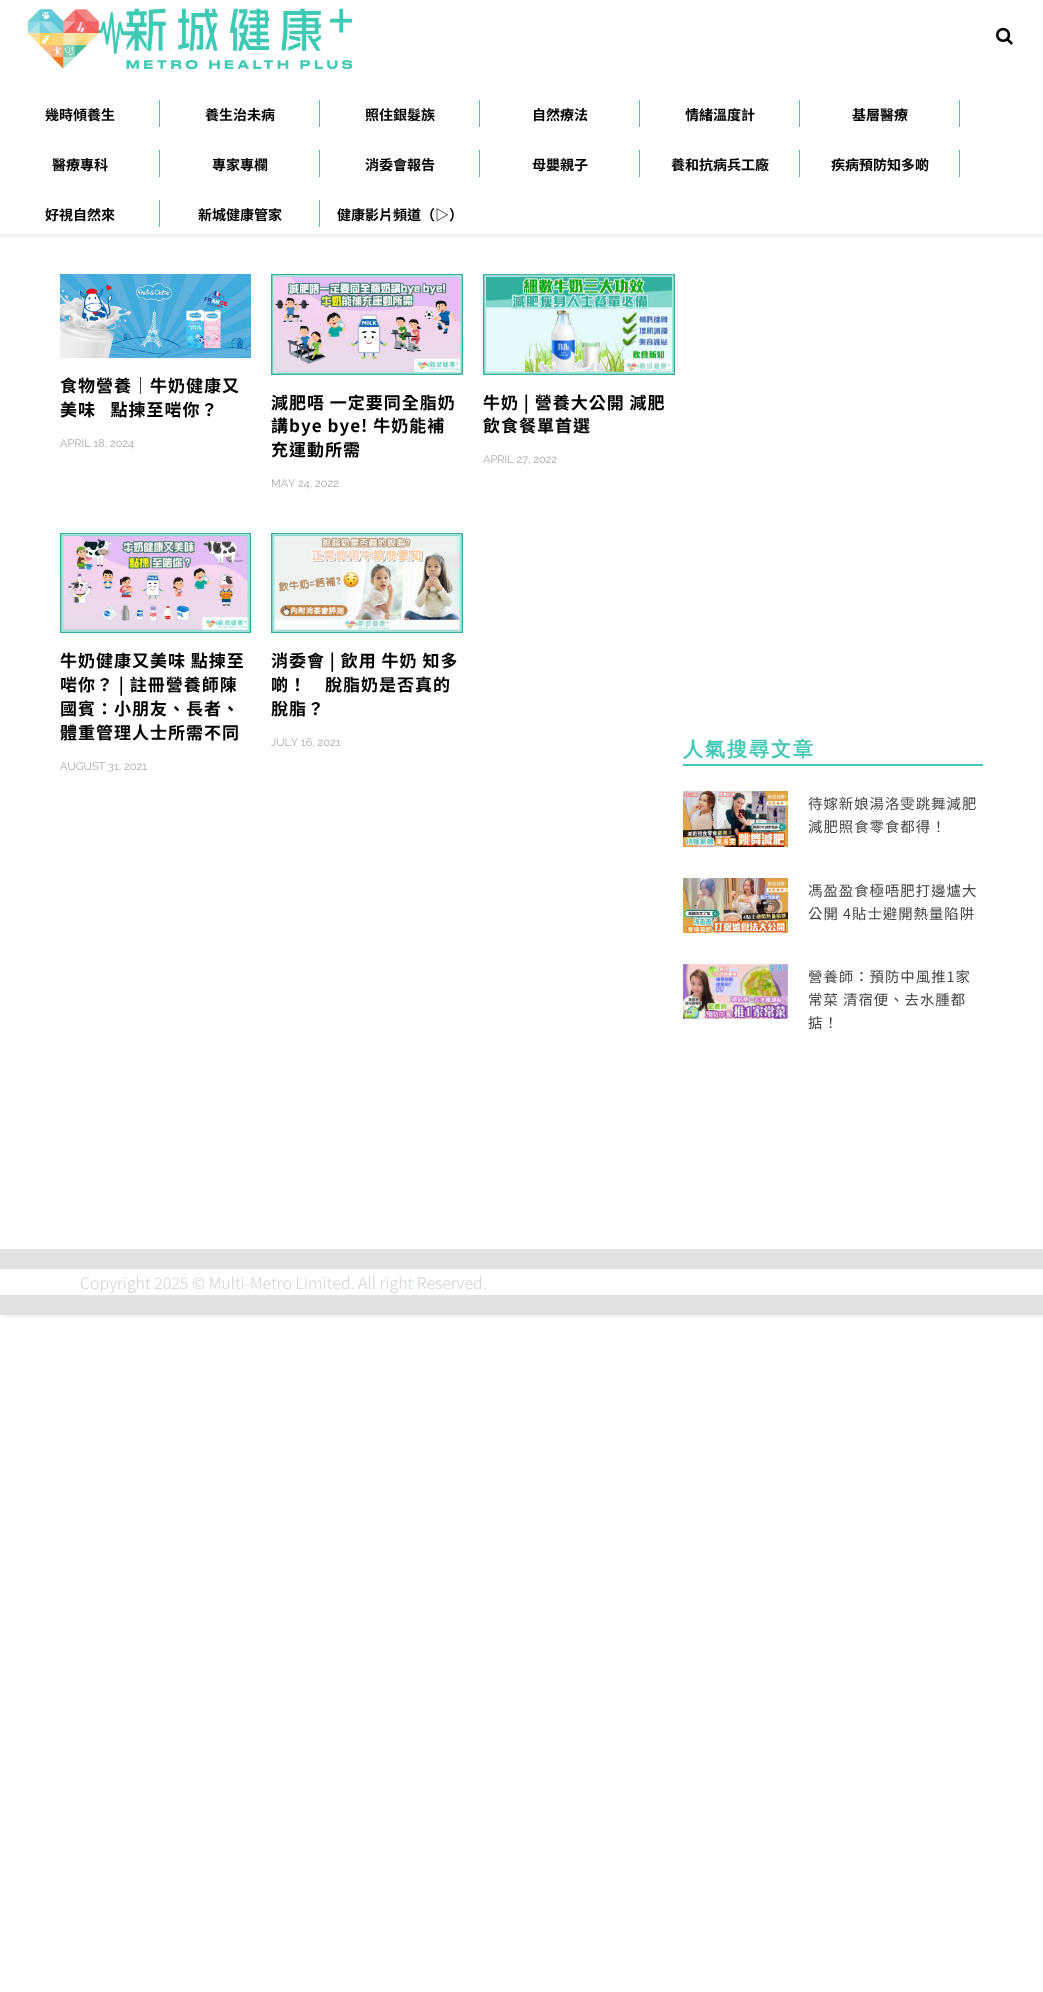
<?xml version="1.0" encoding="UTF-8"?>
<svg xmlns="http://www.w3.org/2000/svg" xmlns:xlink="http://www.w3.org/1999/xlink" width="1043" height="1992">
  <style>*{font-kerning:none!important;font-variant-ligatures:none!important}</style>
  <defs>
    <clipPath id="clip1"><rect x="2" y="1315" width="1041" height="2" /></clipPath>
  </defs>
  <rect width="100%" height="100%" fill="#ffffff" />
  <g clip-path="url(#clip1)">
    <rect x="2" y="2" width="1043" height="1315" fill="#181818" fill-opacity="0.05" filter="blur(0.5px)" />
  </g>
  <image x="27" y="8" width="326" height="62" xlink:href="image1.png" />
  <image x="996" y="27" width="17" height="18" xlink:href="image2.png" />
  <rect y="234" width="1043" height="3" fill="#f2f2f2" />
  <rect x="159" y="100" width="1" height="27" fill="#40c8b4" />
  <rect x="319" y="100" width="1" height="27" fill="#40c8b4" />
  <rect x="479" y="100" width="1" height="27" fill="#40c8b4" />
  <rect x="639" y="100" width="1" height="27" fill="#40c8b4" />
  <rect x="799" y="100" width="1" height="27" fill="#40c8b4" />
  <rect x="959" y="100" width="1" height="27" fill="#40c8b4" />
  <rect x="159" y="150" width="1" height="27" fill="#40c8b4" />
  <rect x="319" y="150" width="1" height="27" fill="#40c8b4" />
  <rect x="479" y="150" width="1" height="27" fill="#40c8b4" />
  <rect x="639" y="150" width="1" height="27" fill="#40c8b4" />
  <rect x="799" y="150" width="1" height="27" fill="#40c8b4" />
  <rect x="959" y="150" width="1" height="27" fill="#40c8b4" />
  <rect x="159" y="200" width="1" height="27" fill="#40c8b4" />
  <rect x="319" y="200" width="1" height="27" fill="#40c8b4" />
  <image x="60" y="274" width="191" height="84" xlink:href="image3.png" />
  <image x="271" y="274" width="192" height="101" xlink:href="image4.png" />
  <image x="483" y="274" width="192" height="101" xlink:href="image5.png" />
  <image x="60" y="533" width="191" height="100" xlink:href="image6.png" />
  <image x="271" y="533" width="192" height="100" xlink:href="image7.png" />
  <rect x="683" y="764" width="300" height="2" fill="#40c8b4" />
  <image x="683" y="791" width="105" height="56" xlink:href="image8.png" />
  <image x="683" y="878" width="105" height="55" xlink:href="image9.png" />
  <image x="683" y="964" width="105" height="55" xlink:href="image10.png" />
  <rect y="1249" width="1043" height="66" fill="#e2e2e2" />
  <rect y="1269" width="1043" height="26" fill="#ffffff" />
  <text x="45" y="120" style="font-family: Noto Sans TC; font-size: 14px; font-weight: bold; fill: #000000">幾時傾養生</text>
  <text x="205" y="120" style="font-family: Noto Sans TC; font-size: 14px; font-weight: bold; fill: #000000">養生治未病</text>
  <text x="365" y="120" style="font-family: Noto Sans TC; font-size: 14px; font-weight: bold; fill: #000000">照住銀髮族</text>
  <text x="532" y="120" style="font-family: Noto Sans TC; font-size: 14px; font-weight: bold; fill: #000000">自然療法</text>
  <text x="685" y="120" style="font-family: Noto Sans TC; font-size: 14px; font-weight: bold; fill: #000000">情緒溫度計</text>
  <text x="852" y="120" style="font-family: Noto Sans TC; font-size: 14px; font-weight: bold; fill: #000000">基層醫療</text>
  <text x="52" y="170" style="font-family: Noto Sans TC; font-size: 14px; font-weight: bold; fill: #000000">醫療專科</text>
  <text x="212" y="170" style="font-family: Noto Sans TC; font-size: 14px; font-weight: bold; fill: #000000">專家專欄</text>
  <text x="365" y="170" style="font-family: Noto Sans TC; font-size: 14px; font-weight: bold; fill: #000000">消委會報告</text>
  <text x="532" y="170" style="font-family: Noto Sans TC; font-size: 14px; font-weight: bold; fill: #000000">母嬰親子</text>
  <text x="671" y="170" style="font-family: Noto Sans TC; font-size: 14px; font-weight: bold; fill: #000000">養和抗病兵工廠</text>
  <text x="831" y="170" style="font-family: Noto Sans TC; font-size: 14px; font-weight: bold; fill: #000000">疾病預防知多啲</text>
  <text x="45" y="220" style="font-family: Noto Sans TC; font-size: 14px; font-weight: bold; fill: #000000">好視自然來</text>
  <text x="198" y="220" style="font-family: Noto Sans TC; font-size: 14px; font-weight: bold; fill: #000000">新城健康管家</text>
  <text x="337" y="220" style="font-family: Noto Sans TC; font-size: 14px; font-weight: bold; fill: #000000">健康影片頻道（▷）</text>
  <text x="60" y="392" style="font-family: Noto Sans TC; font-size: 17px; font-weight: bold; letter-spacing: 1px; fill: #000000">食物營養｜牛奶健康又</text>
  <text x="60" y="416" style="font-family: Noto Sans TC; font-size: 17px; font-weight: bold; letter-spacing: 1px; fill: #000000" xml:space="preserve">美味   點揀至啱你？</text>
  <text x="60" y="447" style="font-family: Raleway; font-size: 11px; fill: #aaaaaa">APRIL 18, 2024</text>
  <text x="271" y="409" style="font-family: Noto Sans TC; font-size: 17px; font-weight: bold; letter-spacing: 1px; fill: #000000">減肥唔 一定要同全脂奶</text>
  <text x="271" y="432" style="font-family: Noto Sans TC; font-size: 17px; font-weight: bold; letter-spacing: 1px; fill: #000000">講bye bye! 牛奶能補</text>
  <text x="271" y="456" style="font-family: Noto Sans TC; font-size: 17px; font-weight: bold; letter-spacing: 1px; fill: #000000">充運動所需</text>
  <text x="271" y="487" style="font-family: Raleway; font-size: 11px; fill: #aaaaaa">MAY 24, 2022</text>
  <text x="483" y="409" style="font-family: Noto Sans TC; font-size: 17px; font-weight: bold; letter-spacing: 1px; fill: #000000">牛奶 | 營養大公開 減肥</text>
  <text x="483" y="432" style="font-family: Noto Sans TC; font-size: 17px; font-weight: bold; letter-spacing: 1px; fill: #000000">飲食餐單首選</text>
  <text x="483" y="463" style="font-family: Raleway; font-size: 11px; fill: #aaaaaa">APRIL 27, 2022</text>
  <text x="60" y="667" style="font-family: Noto Sans TC; font-size: 17px; font-weight: bold; letter-spacing: 1px; fill: #000000">牛奶健康又美味 點揀至</text>
  <text x="60" y="691" style="font-family: Noto Sans TC; font-size: 17px; font-weight: bold; letter-spacing: 1px; fill: #000000">啱你？ | 註冊營養師陳</text>
  <text x="60" y="715" style="font-family: Noto Sans TC; font-size: 17px; font-weight: bold; letter-spacing: 1px; fill: #000000">國賓：小朋友、長者、</text>
  <text x="60" y="739" style="font-family: Noto Sans TC; font-size: 17px; font-weight: bold; letter-spacing: 1px; fill: #000000">體重管理人士所需不同</text>
  <text x="60" y="770" style="font-family: Raleway; font-size: 11px; fill: #aaaaaa">AUGUST 31, 2021</text>
  <text x="271" y="667" style="font-family: Noto Sans TC; font-size: 17px; font-weight: bold; letter-spacing: 1px; fill: #000000">消委會 | 飲用 牛奶 知多</text>
  <text x="271" y="691" style="font-family: Noto Sans TC; font-size: 17px; font-weight: bold; letter-spacing: 1px; fill: #000000">啲！　脫脂奶是否真的</text>
  <text x="271" y="715" style="font-family: Noto Sans TC; font-size: 17px; font-weight: bold; letter-spacing: 1px; fill: #000000">脫脂？</text>
  <text x="271" y="746" style="font-family: Raleway; font-size: 11px; fill: #aaaaaa">JULY 16, 2021</text>
  <text x="683" y="756" style="font-family: WenQuanYi Zen Hei; font-size: 20px; font-weight: bold; letter-spacing: 2px; fill: #40c8b4">人氣搜尋文章</text>
  <text x="808" y="809" style="font-family: Noto Sans TC; font-size: 14.4px; letter-spacing: 1px; fill: #444444">待嫁新娘湯洛雯跳舞減肥</text>
  <text x="808" y="832" style="font-family: Noto Sans TC; font-size: 14.4px; letter-spacing: 1px; fill: #444444">減肥照食零食都得！</text>
  <text x="808" y="896" style="font-family: Noto Sans TC; font-size: 14.4px; letter-spacing: 1px; fill: #444444">馮盈盈食極唔肥打邊爐大</text>
  <text x="808" y="919" style="font-family: Noto Sans TC; font-size: 14.4px; letter-spacing: 1px; fill: #444444">公開 4貼士避開熱量陷阱</text>
  <text x="808" y="982" style="font-family: Noto Sans TC; font-size: 14.4px; letter-spacing: 1px; fill: #444444">營養師：預防中風推1家</text>
  <text x="808" y="1005" style="font-family: Noto Sans TC; font-size: 14.4px; letter-spacing: 1px; fill: #444444">常菜 清宿便、去水腫都</text>
  <text x="808" y="1028" style="font-family: Noto Sans TC; font-size: 14.4px; letter-spacing: 1px; fill: #444444">掂！</text>
  <text x="80" y="1289" style="font-family: Noto Sans TC; font-size: 16px; font-weight: 300; fill: #cdd3d3">Copyright 2025 © Multi-Metro Limited. All right Reserved.</text>
</svg>
